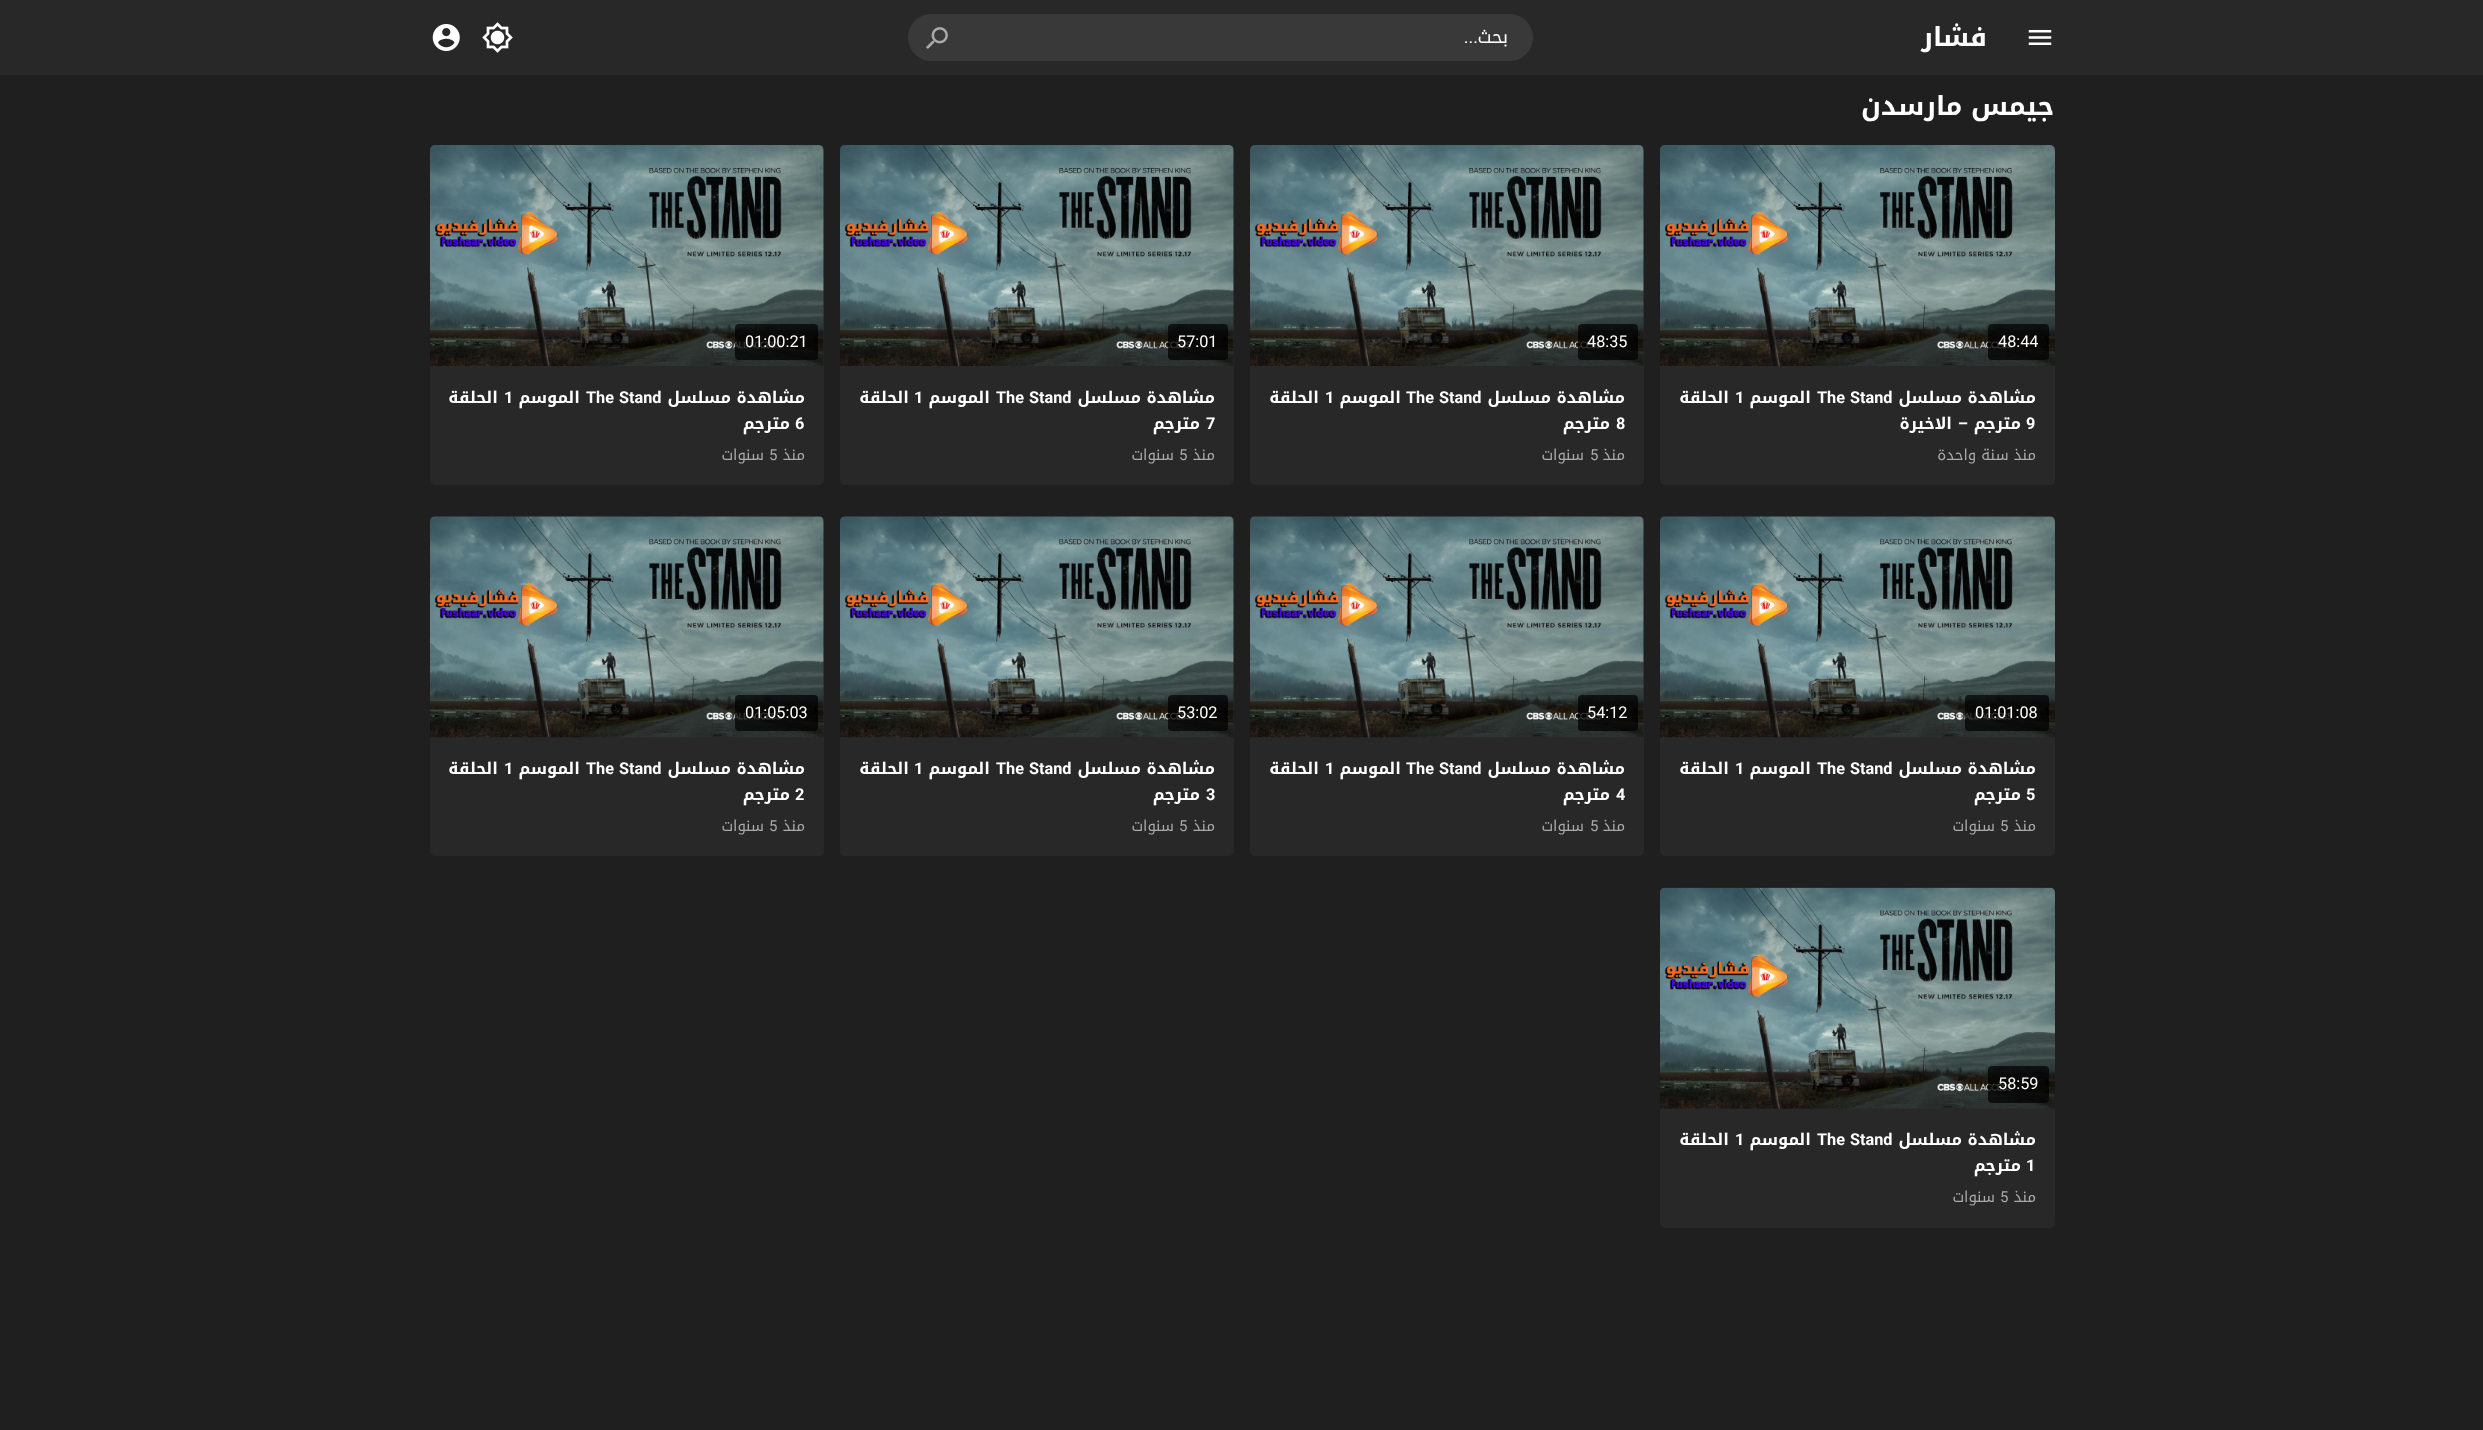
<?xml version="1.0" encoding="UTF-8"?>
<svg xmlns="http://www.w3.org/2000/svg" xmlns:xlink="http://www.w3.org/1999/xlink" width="2483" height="1430">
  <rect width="100%" height="100%" fill="#1f1f1f" />
  <rect width="2483" height="75" fill="#282828" />
  <image x="2028" y="30" width="24" height="15" xlink:href="image1.png" />
  <path d="M 970 14 h 539.5 c 13 0 23.5 10.5 23.5 23.5 c 0 13 -10.5 23.5 -23.5 23.5 h -539.5 z" fill="#393939" />
  <path d="M 931.5 14 h 38.5 v 47 h -38.5 c -13 0 -23.5 -10.5 -23.5 -23.5 c 0 -13 10.5 -23.5 23.5 -23.5 z" fill="#393939" />
  <image x="926" y="27" width="22" height="22" xlink:href="image2.png" />
  <image x="482" y="22" width="31" height="31" xlink:href="image3.png" />
  <image x="432" y="24" width="28" height="27" xlink:href="image4.png" />
  <rect x="1660" y="145" width="395" height="340" rx="5" fill="#282828" />
  <image x="1660" y="145" width="395" height="221" xlink:href="image5.png" />
  <rect x="1988" y="324" width="61" height="36" rx="4" fill="#000000" fill-opacity="0.7" />
  <rect x="1250" y="145" width="394" height="340" rx="5" fill="#282828" />
  <image x="1250" y="145" width="394" height="221" xlink:href="image6.png" />
  <rect x="1578" y="324" width="60" height="36" rx="4" fill="#000000" fill-opacity="0.7" />
  <rect x="840" y="145" width="394" height="340" rx="5" fill="#282828" />
  <image x="840" y="145" width="394" height="221" xlink:href="image6.png" />
  <rect x="1168" y="324" width="60" height="36" rx="4" fill="#000000" fill-opacity="0.7" />
  <rect x="430" y="145" width="394" height="340" rx="5" fill="#282828" />
  <image x="430" y="145" width="394" height="221" xlink:href="image6.png" />
  <rect x="735" y="324" width="83" height="36" rx="4" fill="#000000" fill-opacity="0.7" />
  <rect x="1660" y="516" width="395" height="340" rx="5" fill="#282828" />
  <image x="1660" y="516" width="395" height="222" xlink:href="image7.png" />
  <rect x="1965" y="695" width="84" height="36" rx="4" fill="#000000" fill-opacity="0.7" />
  <rect x="1250" y="516" width="394" height="340" rx="5" fill="#282828" />
  <image x="1250" y="516" width="394" height="222" xlink:href="image8.png" />
  <rect x="1578" y="695" width="60" height="36" rx="4" fill="#000000" fill-opacity="0.7" />
  <rect x="840" y="516" width="394" height="340" rx="5" fill="#282828" />
  <image x="840" y="516" width="394" height="222" xlink:href="image8.png" />
  <rect x="1168" y="695" width="60" height="36" rx="4" fill="#000000" fill-opacity="0.7" />
  <rect x="430" y="516" width="394" height="340" rx="5" fill="#282828" />
  <image x="430" y="516" width="394" height="222" xlink:href="image8.png" />
  <rect x="735" y="695" width="83" height="36" rx="4" fill="#000000" fill-opacity="0.7" />
  <rect x="1660" y="888" width="395" height="340" rx="5" fill="#282828" />
  <image x="1660" y="887" width="395" height="222" xlink:href="image9.png" />
  <rect x="1988" y="1066" width="61" height="37" rx="4" fill="#000000" fill-opacity="0.7" />
  <text x="1987" y="46" style="font-family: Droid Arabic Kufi; font-size: 26.25px; font-weight: bold; direction: rtl; fill: #ffffff">فشار</text>
  <text x="1508" y="43" style="font-family: Droid Arabic Kufi; font-size: 18px; direction: rtl; fill: #ffffff">بحث</text>
  <text x="1478" y="43" style="font-family: Roboto; font-size: 18px; direction: rtl; fill: #ffffff">...</text>
  <text x="2054" y="115" style="font-family: Droid Arabic Kufi; font-size: 26.25px; font-weight: bold; direction: rtl; fill: #ffffff">جيمس مارسدن</text>
  <text x="1998" y="347" style="font-family: Roboto; font-size: 16.25px; fill: #ffffff">48:44</text>
  <text x="2036" y="403" style="font-family: Droid Arabic Kufi; font-size: 16.25px; font-weight: bold; direction: rtl; fill: #ffffff">مشاهدة مسلسل</text>
  <text x="1817" y="403" word-spacing="1" style="font-family: Roboto; font-size: 16.25px; font-weight: bold; fill: #ffffff">The Stand</text>
  <text x="1811" y="403" style="font-family: Droid Arabic Kufi; font-size: 16.25px; font-weight: bold; direction: rtl; fill: #ffffff">الموسم</text>
  <text x="1735" y="403" style="font-family: Roboto; font-size: 16.25px; font-weight: bold; fill: #ffffff">1</text>
  <text x="1729" y="403" style="font-family: Droid Arabic Kufi; font-size: 16.25px; font-weight: bold; direction: rtl; fill: #ffffff">الحلقة</text>
  <text x="2026" y="429" style="font-family: Roboto; font-size: 16.25px; font-weight: bold; fill: #ffffff">9</text>
  <text x="2021" y="429" style="font-family: Droid Arabic Kufi; font-size: 16.25px; font-weight: bold; direction: rtl; fill: #ffffff">مترجم</text>
  <text x="1968" y="429" style="font-family: Roboto; font-size: 16.25px; font-weight: bold; direction: rtl; fill: #ffffff">–</text>
  <text x="1952" y="429" style="font-family: Droid Arabic Kufi; font-size: 16.25px; font-weight: bold; direction: rtl; fill: #ffffff">الاخيرة</text>
  <text x="2036" y="460" style="font-family: Droid Arabic Kufi; font-size: 15px; direction: rtl; fill: #aaaaaa">منذ سنة واحدة</text>
  <text x="1587" y="347" style="font-family: Roboto; font-size: 16.25px; fill: #ffffff">48:35</text>
  <text x="1625" y="403" style="font-family: Droid Arabic Kufi; font-size: 16.25px; font-weight: bold; direction: rtl; fill: #ffffff">مشاهدة مسلسل</text>
  <text x="1406" y="403" word-spacing="1" style="font-family: Roboto; font-size: 16.25px; font-weight: bold; fill: #ffffff">The Stand</text>
  <text x="1401" y="403" style="font-family: Droid Arabic Kufi; font-size: 16.25px; font-weight: bold; direction: rtl; fill: #ffffff">الموسم</text>
  <text x="1325" y="403" style="font-family: Roboto; font-size: 16.25px; font-weight: bold; fill: #ffffff">1</text>
  <text x="1319" y="403" style="font-family: Droid Arabic Kufi; font-size: 16.25px; font-weight: bold; direction: rtl; fill: #ffffff">الحلقة</text>
  <text x="1616" y="429" style="font-family: Roboto; font-size: 16.25px; font-weight: bold; fill: #ffffff">8</text>
  <text x="1610" y="429" style="font-family: Droid Arabic Kufi; font-size: 16.25px; font-weight: bold; direction: rtl; fill: #ffffff">مترجم</text>
  <text x="1625" y="460" style="font-family: Droid Arabic Kufi; font-size: 15px; direction: rtl; fill: #aaaaaa">منذ</text>
  <text x="1590" y="460" style="font-family: Roboto; font-size: 15px; fill: #aaaaaa">5</text>
  <text x="1584" y="460" style="font-family: Droid Arabic Kufi; font-size: 15px; direction: rtl; fill: #aaaaaa">سنوات</text>
  <text x="1177" y="347" style="font-family: Roboto; font-size: 16.25px; fill: #ffffff">57:01</text>
  <text x="1215" y="403" style="font-family: Droid Arabic Kufi; font-size: 16.25px; font-weight: bold; direction: rtl; fill: #ffffff">مشاهدة مسلسل</text>
  <text x="996" y="403" word-spacing="1" style="font-family: Roboto; font-size: 16.25px; font-weight: bold; fill: #ffffff">The Stand</text>
  <text x="990" y="403" style="font-family: Droid Arabic Kufi; font-size: 16.25px; font-weight: bold; direction: rtl; fill: #ffffff">الموسم</text>
  <text x="914" y="403" style="font-family: Roboto; font-size: 16.25px; font-weight: bold; fill: #ffffff">1</text>
  <text x="909" y="403" style="font-family: Droid Arabic Kufi; font-size: 16.25px; font-weight: bold; direction: rtl; fill: #ffffff">الحلقة</text>
  <text x="1206" y="429" style="font-family: Roboto; font-size: 16.25px; font-weight: bold; fill: #ffffff">7</text>
  <text x="1200" y="429" style="font-family: Droid Arabic Kufi; font-size: 16.25px; font-weight: bold; direction: rtl; fill: #ffffff">مترجم</text>
  <text x="1215" y="460" style="font-family: Droid Arabic Kufi; font-size: 15px; direction: rtl; fill: #aaaaaa">منذ</text>
  <text x="1179" y="460" style="font-family: Roboto; font-size: 15px; fill: #aaaaaa">5</text>
  <text x="1174" y="460" style="font-family: Droid Arabic Kufi; font-size: 15px; direction: rtl; fill: #aaaaaa">سنوات</text>
  <text x="745" y="347" style="font-family: Roboto; font-size: 16.25px; fill: #ffffff">01:00:21</text>
  <text x="805" y="403" style="font-family: Droid Arabic Kufi; font-size: 16.25px; font-weight: bold; direction: rtl; fill: #ffffff">مشاهدة مسلسل</text>
  <text x="586" y="403" word-spacing="1" style="font-family: Roboto; font-size: 16.25px; font-weight: bold; fill: #ffffff">The Stand</text>
  <text x="580" y="403" style="font-family: Droid Arabic Kufi; font-size: 16.25px; font-weight: bold; direction: rtl; fill: #ffffff">الموسم</text>
  <text x="504" y="403" style="font-family: Roboto; font-size: 16.25px; font-weight: bold; fill: #ffffff">1</text>
  <text x="498" y="403" style="font-family: Droid Arabic Kufi; font-size: 16.25px; font-weight: bold; direction: rtl; fill: #ffffff">الحلقة</text>
  <text x="795" y="429" style="font-family: Roboto; font-size: 16.25px; font-weight: bold; fill: #ffffff">6</text>
  <text x="790" y="429" style="font-family: Droid Arabic Kufi; font-size: 16.25px; font-weight: bold; direction: rtl; fill: #ffffff">مترجم</text>
  <text x="805" y="460" style="font-family: Droid Arabic Kufi; font-size: 15px; direction: rtl; fill: #aaaaaa">منذ</text>
  <text x="769" y="460" style="font-family: Roboto; font-size: 15px; fill: #aaaaaa">5</text>
  <text x="764" y="460" style="font-family: Droid Arabic Kufi; font-size: 15px; direction: rtl; fill: #aaaaaa">سنوات</text>
  <text x="1975" y="718" style="font-family: Roboto; font-size: 16.25px; fill: #ffffff">01:01:08</text>
  <text x="2036" y="774" style="font-family: Droid Arabic Kufi; font-size: 16.25px; font-weight: bold; direction: rtl; fill: #ffffff">مشاهدة مسلسل</text>
  <text x="1817" y="774" word-spacing="1" style="font-family: Roboto; font-size: 16.25px; font-weight: bold; fill: #ffffff">The Stand</text>
  <text x="1811" y="774" style="font-family: Droid Arabic Kufi; font-size: 16.25px; font-weight: bold; direction: rtl; fill: #ffffff">الموسم</text>
  <text x="1735" y="774" style="font-family: Roboto; font-size: 16.25px; font-weight: bold; fill: #ffffff">1</text>
  <text x="1729" y="774" style="font-family: Droid Arabic Kufi; font-size: 16.25px; font-weight: bold; direction: rtl; fill: #ffffff">الحلقة</text>
  <text x="2026" y="800" style="font-family: Roboto; font-size: 16.25px; font-weight: bold; fill: #ffffff">5</text>
  <text x="2021" y="800" style="font-family: Droid Arabic Kufi; font-size: 16.25px; font-weight: bold; direction: rtl; fill: #ffffff">مترجم</text>
  <text x="2036" y="831" style="font-family: Droid Arabic Kufi; font-size: 15px; direction: rtl; fill: #aaaaaa">منذ</text>
  <text x="2000" y="831" style="font-family: Roboto; font-size: 15px; fill: #aaaaaa">5</text>
  <text x="1995" y="831" style="font-family: Droid Arabic Kufi; font-size: 15px; direction: rtl; fill: #aaaaaa">سنوات</text>
  <text x="1587" y="718" style="font-family: Roboto; font-size: 16.25px; fill: #ffffff">54:12</text>
  <text x="1625" y="774" style="font-family: Droid Arabic Kufi; font-size: 16.25px; font-weight: bold; direction: rtl; fill: #ffffff">مشاهدة مسلسل</text>
  <text x="1406" y="774" word-spacing="1" style="font-family: Roboto; font-size: 16.25px; font-weight: bold; fill: #ffffff">The Stand</text>
  <text x="1401" y="774" style="font-family: Droid Arabic Kufi; font-size: 16.25px; font-weight: bold; direction: rtl; fill: #ffffff">الموسم</text>
  <text x="1325" y="774" style="font-family: Roboto; font-size: 16.25px; font-weight: bold; fill: #ffffff">1</text>
  <text x="1319" y="774" style="font-family: Droid Arabic Kufi; font-size: 16.25px; font-weight: bold; direction: rtl; fill: #ffffff">الحلقة</text>
  <text x="1616" y="800" style="font-family: Roboto; font-size: 16.25px; font-weight: bold; fill: #ffffff">4</text>
  <text x="1610" y="800" style="font-family: Droid Arabic Kufi; font-size: 16.25px; font-weight: bold; direction: rtl; fill: #ffffff">مترجم</text>
  <text x="1625" y="831" style="font-family: Droid Arabic Kufi; font-size: 15px; direction: rtl; fill: #aaaaaa">منذ</text>
  <text x="1590" y="831" style="font-family: Roboto; font-size: 15px; fill: #aaaaaa">5</text>
  <text x="1584" y="831" style="font-family: Droid Arabic Kufi; font-size: 15px; direction: rtl; fill: #aaaaaa">سنوات</text>
  <text x="1177" y="718" style="font-family: Roboto; font-size: 16.25px; fill: #ffffff">53:02</text>
  <text x="1215" y="774" style="font-family: Droid Arabic Kufi; font-size: 16.25px; font-weight: bold; direction: rtl; fill: #ffffff">مشاهدة مسلسل</text>
  <text x="996" y="774" word-spacing="1" style="font-family: Roboto; font-size: 16.25px; font-weight: bold; fill: #ffffff">The Stand</text>
  <text x="990" y="774" style="font-family: Droid Arabic Kufi; font-size: 16.25px; font-weight: bold; direction: rtl; fill: #ffffff">الموسم</text>
  <text x="914" y="774" style="font-family: Roboto; font-size: 16.25px; font-weight: bold; fill: #ffffff">1</text>
  <text x="909" y="774" style="font-family: Droid Arabic Kufi; font-size: 16.25px; font-weight: bold; direction: rtl; fill: #ffffff">الحلقة</text>
  <text x="1206" y="800" style="font-family: Roboto; font-size: 16.25px; font-weight: bold; fill: #ffffff">3</text>
  <text x="1200" y="800" style="font-family: Droid Arabic Kufi; font-size: 16.25px; font-weight: bold; direction: rtl; fill: #ffffff">مترجم</text>
  <text x="1215" y="831" style="font-family: Droid Arabic Kufi; font-size: 15px; direction: rtl; fill: #aaaaaa">منذ</text>
  <text x="1179" y="831" style="font-family: Roboto; font-size: 15px; fill: #aaaaaa">5</text>
  <text x="1174" y="831" style="font-family: Droid Arabic Kufi; font-size: 15px; direction: rtl; fill: #aaaaaa">سنوات</text>
  <text x="745" y="718" style="font-family: Roboto; font-size: 16.25px; fill: #ffffff">01:05:03</text>
  <text x="805" y="774" style="font-family: Droid Arabic Kufi; font-size: 16.25px; font-weight: bold; direction: rtl; fill: #ffffff">مشاهدة مسلسل</text>
  <text x="586" y="774" word-spacing="1" style="font-family: Roboto; font-size: 16.25px; font-weight: bold; fill: #ffffff">The Stand</text>
  <text x="580" y="774" style="font-family: Droid Arabic Kufi; font-size: 16.25px; font-weight: bold; direction: rtl; fill: #ffffff">الموسم</text>
  <text x="504" y="774" style="font-family: Roboto; font-size: 16.25px; font-weight: bold; fill: #ffffff">1</text>
  <text x="498" y="774" style="font-family: Droid Arabic Kufi; font-size: 16.25px; font-weight: bold; direction: rtl; fill: #ffffff">الحلقة</text>
  <text x="795" y="800" style="font-family: Roboto; font-size: 16.25px; font-weight: bold; fill: #ffffff">2</text>
  <text x="790" y="800" style="font-family: Droid Arabic Kufi; font-size: 16.25px; font-weight: bold; direction: rtl; fill: #ffffff">مترجم</text>
  <text x="805" y="831" style="font-family: Droid Arabic Kufi; font-size: 15px; direction: rtl; fill: #aaaaaa">منذ</text>
  <text x="769" y="831" style="font-family: Roboto; font-size: 15px; fill: #aaaaaa">5</text>
  <text x="764" y="831" style="font-family: Droid Arabic Kufi; font-size: 15px; direction: rtl; fill: #aaaaaa">سنوات</text>
  <text x="1998" y="1089" style="font-family: Roboto; font-size: 16.25px; fill: #ffffff">58:59</text>
  <text x="2036" y="1145" style="font-family: Droid Arabic Kufi; font-size: 16.25px; font-weight: bold; direction: rtl; fill: #ffffff">مشاهدة مسلسل</text>
  <text x="1817" y="1145" word-spacing="1" style="font-family: Roboto; font-size: 16.25px; font-weight: bold; fill: #ffffff">The Stand</text>
  <text x="1811" y="1145" style="font-family: Droid Arabic Kufi; font-size: 16.25px; font-weight: bold; direction: rtl; fill: #ffffff">الموسم</text>
  <text x="1735" y="1145" style="font-family: Roboto; font-size: 16.25px; font-weight: bold; fill: #ffffff">1</text>
  <text x="1729" y="1145" style="font-family: Droid Arabic Kufi; font-size: 16.25px; font-weight: bold; direction: rtl; fill: #ffffff">الحلقة</text>
  <text x="2026" y="1171" style="font-family: Roboto; font-size: 16.25px; font-weight: bold; fill: #ffffff">1</text>
  <text x="2021" y="1171" style="font-family: Droid Arabic Kufi; font-size: 16.25px; font-weight: bold; direction: rtl; fill: #ffffff">مترجم</text>
  <text x="2036" y="1202" style="font-family: Droid Arabic Kufi; font-size: 15px; direction: rtl; fill: #aaaaaa">منذ</text>
  <text x="2000" y="1202" style="font-family: Roboto; font-size: 15px; fill: #aaaaaa">5</text>
  <text x="1995" y="1202" style="font-family: Droid Arabic Kufi; font-size: 15px; direction: rtl; fill: #aaaaaa">سنوات</text>
</svg>
